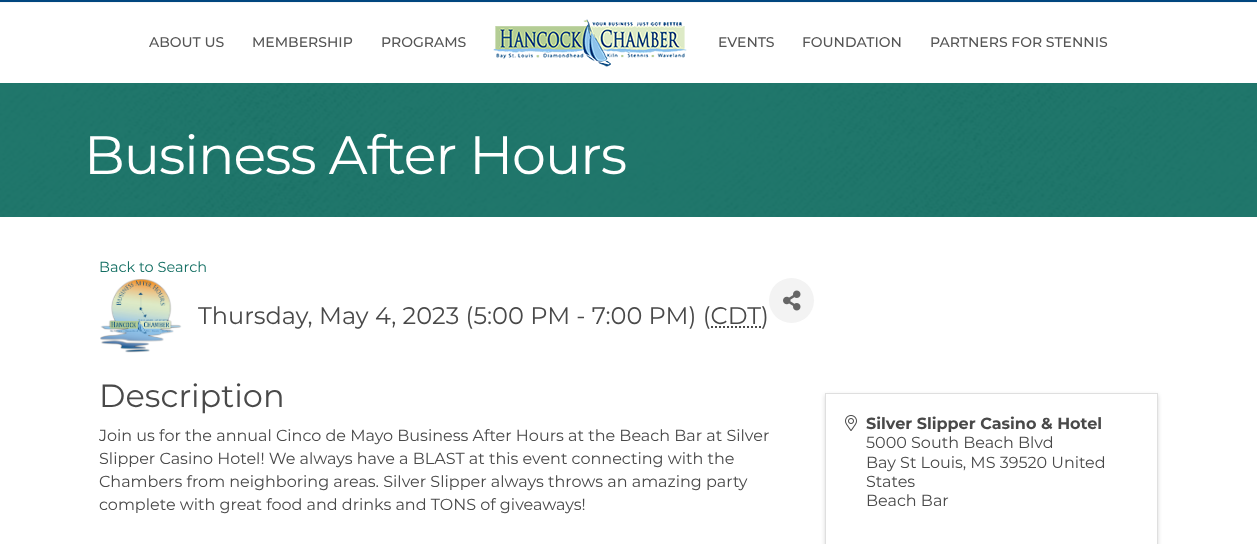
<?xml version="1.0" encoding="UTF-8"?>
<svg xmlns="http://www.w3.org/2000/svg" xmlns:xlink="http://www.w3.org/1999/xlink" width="1257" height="544">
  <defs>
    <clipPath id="clip1"><path d="M 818 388 h 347 v 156 h -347 z m 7 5 h 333 v 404 h -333 z" clip-rule="evenodd" /></clipPath>
  </defs>
  <rect width="100%" height="100%" fill="#ffffff" />
  <rect width="1257" height="2" fill="#00467f" />
  <rect y="2" width="1257" height="1" fill="#f5f5f5" />
  <image x="493" y="19" width="194" height="48" xlink:href="image1.png" />
  <image x="0" y="83" width="1257" height="134" xlink:href="image2.png" />
  <image x="100" y="279" width="82" height="74" xlink:href="image3.png" />
  <path d="M 711 327 h 50.5" fill="none" stroke="#494949" stroke-width="2" stroke-dasharray="2 2" />
  <circle cx="791.5" cy="300.5" r="22.5" fill="#f3f3f3" />
  <image x="783" y="290" width="18" height="21" xlink:href="image4.png" />
  <g clip-path="url(#clip1)">
    <rect x="825" y="395" width="333" height="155" fill="#000000" fill-opacity="0.15" filter="blur(2px)" />
  </g>
  <rect x="825.5" y="393.5" width="332" height="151" fill="none" stroke="#dfdfdf" />
  <image x="845" y="415" width="12" height="16" xlink:href="image5.png" />
  <text x="149" y="47" style="font-family: Montserrat; font-size: 14px; font-weight: 500; fill: #555555">ABOUT US</text>
  <text x="252" y="47" style="font-family: Montserrat; font-size: 14px; font-weight: 500; fill: #555555">MEMBERSHIP</text>
  <text x="381" y="47" style="font-family: Montserrat; font-size: 14px; font-weight: 500; fill: #555555">PROGRAMS</text>
  <text x="718" y="47" style="font-family: Montserrat; font-size: 14px; font-weight: 500; fill: #555555">EVENTS</text>
  <text x="802" y="47" style="font-family: Montserrat; font-size: 14px; font-weight: 500; fill: #555555">FOUNDATION</text>
  <text x="930" y="47" style="font-family: Montserrat; font-size: 14px; font-weight: 500; fill: #555555">PARTNERS FOR STENNIS</text>
  <text x="84" y="174" style="font-family: Montserrat; font-size: 54px; letter-spacing: -1px; fill: #ffffff">Business After Hours</text>
  <text x="99" y="272" style="font-family: Montserrat; font-size: 14.5px; fill: #126e62">Back to Search</text>
  <text x="198" y="324" style="font-family: Montserrat; font-size: 24px; fill: #494949">Thursday, May 4, 2023 (5:00 PM - 7:00 PM) (CDT)</text>
  <text x="99" y="407" style="font-family: Montserrat; font-size: 32px; fill: #494949">Description</text>
  <text x="99" y="441" style="font-family: Montserrat; font-size: 16px; fill: #494949">Join us for the annual Cinco de Mayo Business After Hours at the Beach Bar at Silver</text>
  <text x="99" y="464" style="font-family: Montserrat; font-size: 16px; fill: #494949">Slipper Casino Hotel! We always have a BLAST at this event connecting with the</text>
  <text x="99" y="487" style="font-family: Montserrat; font-size: 16px; fill: #494949">Chambers from neighboring areas. Silver Slipper always throws an amazing party</text>
  <text x="99" y="510" style="font-family: Montserrat; font-size: 16px; fill: #494949">complete with great food and drinks and TONS of giveaways!</text>
  <text x="866" y="429" style="font-family: Montserrat; font-size: 16px; font-weight: bold; fill: #494949">Silver Slipper Casino &amp; Hotel</text>
  <text x="866" y="448" style="font-family: Montserrat; font-size: 16px; fill: #494949">5000 South Beach Blvd</text>
  <text x="866" y="468" style="font-family: Montserrat; font-size: 16px; fill: #494949">Bay St Louis, MS 39520 United</text>
  <text x="866" y="487" style="font-family: Montserrat; font-size: 16px; fill: #494949">States</text>
  <text x="866" y="506" style="font-family: Montserrat; font-size: 16px; fill: #494949">Beach Bar</text>
</svg>
